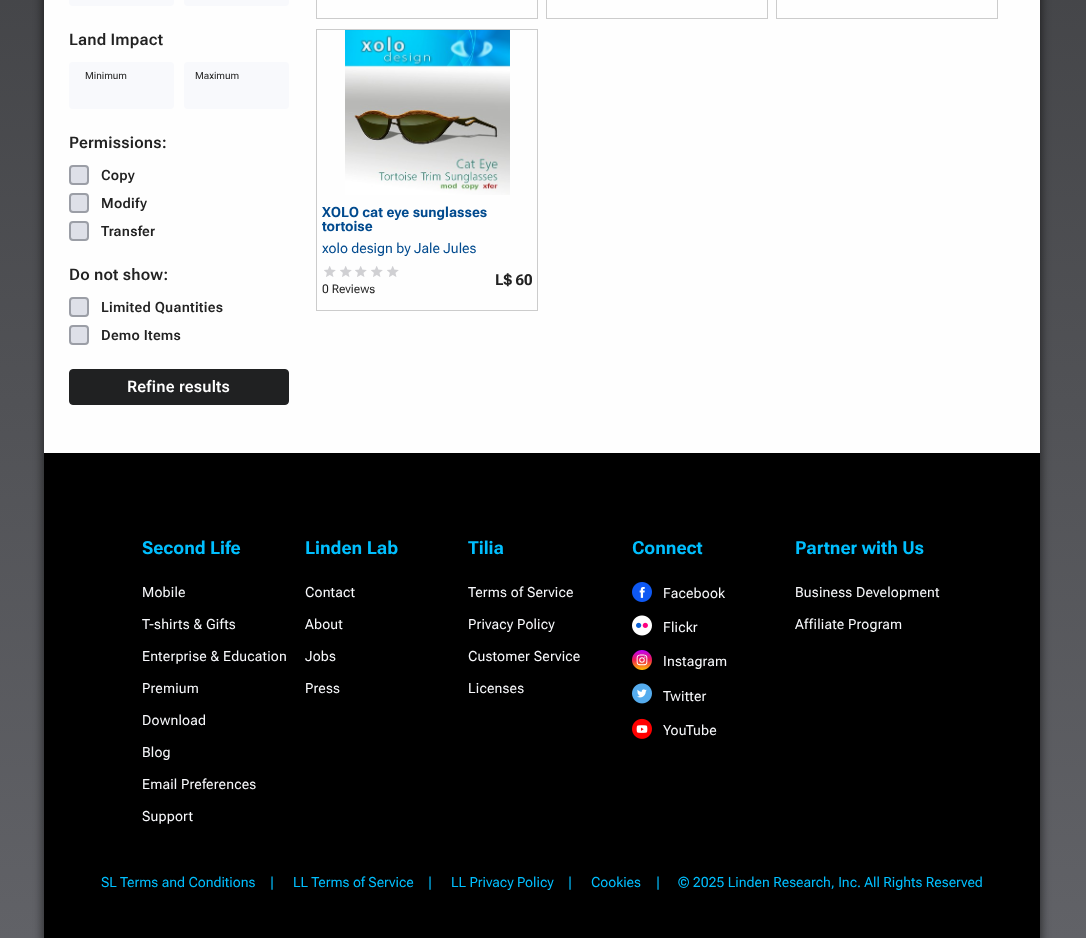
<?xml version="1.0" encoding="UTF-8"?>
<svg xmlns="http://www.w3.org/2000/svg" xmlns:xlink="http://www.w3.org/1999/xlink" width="1086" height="938">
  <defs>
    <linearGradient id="g1" gradientUnits="userSpaceOnUse" x1="543" y1="-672" x2="543" y2="938"><stop offset="0" stop-color="#313234" /><stop offset="1" stop-color="#616267" /></linearGradient>
  </defs>
  <rect width="100%" height="100%" fill="#ffffff" />
  <rect width="1086" height="938" fill="url(#g1)" />
  <rect x="42" y="-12" width="1000" height="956" fill="#000000" fill-opacity="0.5" filter="blur(4px)" />
  <rect x="44" width="996" height="453" fill="#fefefe" />
  <rect x="69" y="-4" width="105" height="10" rx="4" fill="#f8f9fc" />
  <rect x="184" y="-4" width="105" height="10" rx="4" fill="#f8f9fc" />
  <rect x="69" y="62" width="105" height="47" rx="4" fill="#f8f9fc" />
  <rect x="184" y="62" width="105" height="47" rx="4" fill="#f8f9fc" />
  <rect x="70" y="166" width="18" height="18" rx="3" fill="#dee0e8" stroke="#9b9ea6" stroke-width="2" />
  <rect x="70" y="194" width="18" height="18" rx="3" fill="#dee0e8" stroke="#9b9ea6" stroke-width="2" />
  <rect x="70" y="222" width="18" height="18" rx="3" fill="#dee0e8" stroke="#9b9ea6" stroke-width="2" />
  <rect x="70" y="298" width="18" height="18" rx="3" fill="#dee0e8" stroke="#9b9ea6" stroke-width="2" />
  <rect x="70" y="326" width="18" height="18" rx="3" fill="#dee0e8" stroke="#9b9ea6" stroke-width="2" />
  <rect x="69.5" y="369.5" width="219" height="35" rx="3.5" fill="#202122" stroke="#202122" />
  <rect x="316.5" y="-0.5" width="221" height="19" fill="none" stroke="#cccccc" />
  <rect x="546.5" y="-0.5" width="221" height="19" fill="none" stroke="#cccccc" />
  <rect x="776.5" y="-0.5" width="221" height="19" fill="none" stroke="#cccccc" />
  <rect x="316.5" y="29.5" width="221" height="281" fill="none" stroke="#cccccc" />
  <image x="345" y="30" width="165" height="165" xlink:href="image1.png" />
  <image x="324" y="266" width="12" height="11" xlink:href="image2.png" />
  <image x="340" y="266" width="12" height="11" xlink:href="image2.png" />
  <image x="355" y="266" width="12" height="11" xlink:href="image2.png" />
  <image x="371" y="266" width="12" height="11" xlink:href="image2.png" />
  <image x="387" y="266" width="12" height="11" xlink:href="image2.png" />
  <rect x="44" y="453" width="996" height="485" fill="#000000" />
  <image x="632" y="582" width="20" height="20" xlink:href="image3.png" />
  <image x="632" y="615" width="20" height="21" xlink:href="image4.png" />
  <image x="632" y="650" width="20" height="20" xlink:href="image5.png" />
  <image x="632" y="683" width="20" height="21" xlink:href="image6.png" />
  <image x="632" y="718" width="20" height="21" xlink:href="image7.png" />
  <text x="69" y="45" style="font-family: Roboto Flex; font-size: 16px; font-weight: 600; letter-spacing: 0.2px; fill: #222222">Land Impact</text>
  <text x="85" y="79" style="font-family: Roboto Flex; font-size: 10px; fill: #222222">Minimum</text>
  <text x="195" y="79" style="font-family: Roboto Flex; font-size: 10px; fill: #222222">Maximum</text>
  <text x="69" y="148" style="font-family: Roboto Flex; font-size: 16px; font-weight: 600; letter-spacing: 0.2px; fill: #222222">Permissions:</text>
  <text x="101" y="180" style="font-family: Roboto Flex; font-size: 14px; font-weight: 600; letter-spacing: 0.25px; fill: #222222">Copy</text>
  <text x="101" y="208" style="font-family: Roboto Flex; font-size: 14px; font-weight: 600; letter-spacing: 0.25px; fill: #222222">Modify</text>
  <text x="101" y="236" style="font-family: Roboto Flex; font-size: 14px; font-weight: 600; letter-spacing: 0.25px; fill: #222222">Transfer</text>
  <text x="69" y="280" style="font-family: Roboto Flex; font-size: 16px; font-weight: 600; letter-spacing: 0.2px; fill: #222222">Do not show:</text>
  <text x="101" y="312" style="font-family: Roboto Flex; font-size: 14px; font-weight: 600; letter-spacing: 0.25px; fill: #222222">Limited Quantities</text>
  <text x="101" y="340" style="font-family: Roboto Flex; font-size: 14px; font-weight: 600; letter-spacing: 0.25px; fill: #222222">Demo Items</text>
  <text x="127" y="392" style="font-family: Roboto Flex; font-size: 16px; font-weight: 600; letter-spacing: 0.2px; fill: #ffffff">Refine results</text>
  <text x="322" y="217" style="font-family: Roboto Flex; font-size: 14px; font-weight: bold; fill: #014a8e">XOLO cat eye sunglasses</text>
  <text x="322" y="231" style="font-family: Roboto Flex; font-size: 14px; font-weight: bold; fill: #014a8e">tortoise</text>
  <text x="322" y="253" style="font-family: Roboto Flex; font-size: 14px; fill: #014a8e">xolo design by Jale Jules</text>
  <text x="495" y="285" style="font-family: Roboto Flex; font-size: 15px; font-weight: bold; fill: #222222">L$ 60</text>
  <text x="322" y="293" style="font-family: Roboto Flex; font-size: 12px; fill: #222222">0 Reviews</text>
  <text x="142" y="554" style="font-family: Roboto Flex; font-size: 18px; font-weight: bold; fill: #00bfff">Second Life</text>
  <text x="142" y="597" style="font-family: Roboto Flex; font-size: 14px; letter-spacing: 0.2px; fill: #f8f9fc">Mobile</text>
  <text x="142" y="629" style="font-family: Roboto Flex; font-size: 14px; letter-spacing: 0.2px; fill: #f8f9fc">T-shirts &amp; Gifts</text>
  <text x="142" y="661" style="font-family: Roboto Flex; font-size: 14px; letter-spacing: 0.2px; fill: #f8f9fc">Enterprise &amp; Education</text>
  <text x="142" y="693" style="font-family: Roboto Flex; font-size: 14px; letter-spacing: 0.2px; fill: #f8f9fc">Premium</text>
  <text x="142" y="725" style="font-family: Roboto Flex; font-size: 14px; letter-spacing: 0.2px; fill: #f8f9fc">Download</text>
  <text x="142" y="757" style="font-family: Roboto Flex; font-size: 14px; letter-spacing: 0.2px; fill: #f8f9fc">Blog</text>
  <text x="142" y="789" style="font-family: Roboto Flex; font-size: 14px; letter-spacing: 0.2px; fill: #f8f9fc">Email Preferences</text>
  <text x="142" y="821" style="font-family: Roboto Flex; font-size: 14px; letter-spacing: 0.2px; fill: #f8f9fc">Support</text>
  <text x="305" y="554" style="font-family: Roboto Flex; font-size: 18px; font-weight: bold; fill: #00bfff">Linden Lab</text>
  <text x="305" y="597" style="font-family: Roboto Flex; font-size: 14px; letter-spacing: 0.2px; fill: #f8f9fc">Contact</text>
  <text x="305" y="629" style="font-family: Roboto Flex; font-size: 14px; letter-spacing: 0.2px; fill: #f8f9fc">About</text>
  <text x="305" y="661" style="font-family: Roboto Flex; font-size: 14px; letter-spacing: 0.2px; fill: #f8f9fc">Jobs</text>
  <text x="305" y="693" style="font-family: Roboto Flex; font-size: 14px; letter-spacing: 0.2px; fill: #f8f9fc">Press</text>
  <text x="468" y="554" style="font-family: Roboto Flex; font-size: 18px; font-weight: bold; fill: #00bfff">Tilia</text>
  <text x="468" y="597" style="font-family: Roboto Flex; font-size: 14px; letter-spacing: 0.2px; fill: #f8f9fc">Terms of Service</text>
  <text x="468" y="629" style="font-family: Roboto Flex; font-size: 14px; letter-spacing: 0.2px; fill: #f8f9fc">Privacy Policy</text>
  <text x="468" y="661" style="font-family: Roboto Flex; font-size: 14px; letter-spacing: 0.2px; fill: #f8f9fc">Customer Service</text>
  <text x="468" y="693" style="font-family: Roboto Flex; font-size: 14px; letter-spacing: 0.2px; fill: #f8f9fc">Licenses</text>
  <text x="632" y="554" style="font-family: Roboto Flex; font-size: 18px; font-weight: bold; fill: #00bfff">Connect</text>
  <text x="663" y="598" style="font-family: Roboto Flex; font-size: 14px; letter-spacing: 0.2px; fill: #f8f9fc">Facebook</text>
  <text x="663" y="632" style="font-family: Roboto Flex; font-size: 14px; letter-spacing: 0.2px; fill: #f8f9fc">Flickr</text>
  <text x="663" y="666" style="font-family: Roboto Flex; font-size: 14px; letter-spacing: 0.2px; fill: #f8f9fc">Instagram</text>
  <text x="663" y="701" style="font-family: Roboto Flex; font-size: 14px; letter-spacing: 0.2px; fill: #f8f9fc">Twitter</text>
  <text x="663" y="735" style="font-family: Roboto Flex; font-size: 14px; letter-spacing: 0.2px; fill: #f8f9fc">YouTube</text>
  <text x="795" y="554" style="font-family: Roboto Flex; font-size: 18px; font-weight: bold; fill: #00bfff">Partner with Us</text>
  <text x="795" y="597" style="font-family: Roboto Flex; font-size: 14px; letter-spacing: 0.2px; fill: #f8f9fc">Business Development</text>
  <text x="795" y="629" style="font-family: Roboto Flex; font-size: 14px; letter-spacing: 0.2px; fill: #f8f9fc">Affiliate Program</text>
  <text x="101" y="887" style="font-family: Roboto Flex; font-size: 14px; fill: #00bfff">SL Terms and Conditions</text>
  <text x="270" y="887" style="font-family: Roboto Flex; font-size: 14px; fill: #00bfff">|</text>
  <text x="293" y="887" style="font-family: Roboto Flex; font-size: 14px; fill: #00bfff">LL Terms of Service</text>
  <text x="428" y="887" style="font-family: Roboto Flex; font-size: 14px; fill: #00bfff">|</text>
  <text x="451" y="887" style="font-family: Roboto Flex; font-size: 14px; fill: #00bfff">LL Privacy Policy</text>
  <text x="568" y="887" style="font-family: Roboto Flex; font-size: 14px; fill: #00bfff">|</text>
  <text x="591" y="887" style="font-family: Roboto Flex; font-size: 14px; fill: #00bfff">Cookies</text>
  <text x="656" y="887" style="font-family: Roboto Flex; font-size: 14px; fill: #00bfff">|</text>
  <text x="678" y="887" style="font-family: Roboto Flex; font-size: 14px; fill: #00bfff">© 2025 Linden Research, Inc. All Rights Reserved</text>
</svg>
